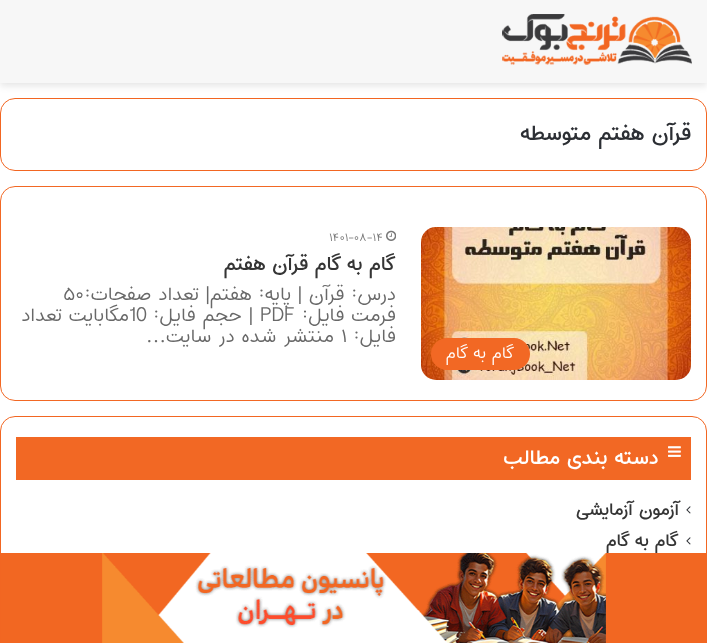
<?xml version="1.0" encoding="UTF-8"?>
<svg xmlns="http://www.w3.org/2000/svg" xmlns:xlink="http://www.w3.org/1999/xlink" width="707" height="643">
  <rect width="100%" height="100%" fill="#ffffff" />
  <rect y="3" width="707" height="83" fill="#000000" fill-opacity="0.1" filter="blur(3.5px)" />
  <rect width="707" height="83" fill="#f7f7f7" />
  <image x="502" y="14" width="190" height="51" xlink:href="image1.png" />
  <rect x="0.5" y="98.5" width="706" height="72" rx="14.5" fill="none" stroke="#f26622" />
  <rect x="0.5" y="186.5" width="706" height="214" rx="14.5" fill="none" stroke="#f26824" />
  <image x="386" y="230" width="10" height="11" xlink:href="image2.png" />
  <image x="421" y="227" width="270" height="153" xlink:href="image3.png" />
  <rect x="431" y="338" width="99" height="32" rx="16" fill="#f26824" />
  <rect x="0.5" y="416.5" width="706" height="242" rx="14.5" fill="none" stroke="#f26622" />
  <rect x="16" y="437" width="675" height="43" fill="#f26824" />
  <image x="668" y="446" width="13" height="11" xlink:href="image4.png" />
  <image x="686" y="506" width="5" height="8" xlink:href="image5.png" />
  <image x="686" y="537" width="5" height="8" xlink:href="image5.png" />
  <text x="691" y="140" style="font-family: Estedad; font-size: 22px; font-weight: bold; direction: rtl; fill: #2c2f34">قرآن هفتم متوسطه</text>
  <text x="329" y="241" style="font-family: Estedad; font-size: 12px; font-weight: 300; fill: #777777">۱۴۰۱-۰۸-۱۴</text>
  <text x="396" y="270" style="font-family: Estedad; font-size: 20px; font-weight: bold; direction: rtl; fill: #353535">گام به گام قرآن هفتم</text>
  <text x="396" y="300" style="font-family: Estedad; font-size: 20px; font-weight: 300; direction: rtl; fill: #686868">درس: قرآن | پایه: هفتم| تعداد صفحات:</text>
  <text x="63" y="300" style="font-family: Estedad; font-size: 20px; font-weight: 300; fill: #686868">۵۰</text>
  <text x="396" y="321" style="font-family: Estedad; font-size: 20px; font-weight: 300; direction: rtl; fill: #686868">فرمت فایل:</text>
  <text x="260" y="321" style="font-family: Estedad; font-size: 20px; font-weight: 300; fill: #686868">PDF</text>
  <text x="253" y="321" style="font-family: Estedad; font-size: 20px; font-weight: 300; direction: rtl; fill: #686868">| حجم فایل:</text>
  <text x="129" y="321" style="font-family: Estedad; font-size: 20px; font-weight: 300; fill: #686868">10</text>
  <text x="129" y="321" style="font-family: Estedad; font-size: 20px; font-weight: 300; direction: rtl; fill: #686868">مگابایت تعداد</text>
  <text x="396" y="342" style="font-family: Estedad; font-size: 20px; font-weight: 300; direction: rtl; fill: #686868">فایل:</text>
  <text x="341" y="342" style="font-family: Estedad; font-size: 20px; font-weight: 300; fill: #686868">۱</text>
  <text x="334" y="342" style="font-family: Estedad; font-size: 20px; font-weight: 300; direction: rtl; fill: #686868">منتشر شده در سایت</text>
  <text x="166" y="342" style="font-family: Liberation Serif; font-size: 20px; direction: rtl; fill: #686868">…</text>
  <text x="515" y="358" style="font-family: Estedad; font-size: 17px; font-weight: 300; direction: rtl; fill: #ffffff">گام به گام</text>
  <text x="658" y="464" style="font-family: Estedad; font-size: 21px; font-weight: bold; direction: rtl; fill: #ffffff">دسته بندی مطالب</text>
  <text x="679" y="515" style="font-family: Estedad; font-size: 18px; font-weight: bold; direction: rtl; fill: #353535">آزمون آزمایشی</text>
  <text x="679" y="546" style="font-family: Estedad; font-size: 18px; font-weight: bold; direction: rtl; fill: #353535">گام به گام</text>
  <rect x="1" y="553" width="705" height="90" fill="#f26722" />
  <image x="102" y="553" width="504" height="90" xlink:href="image6.png" />
</svg>
